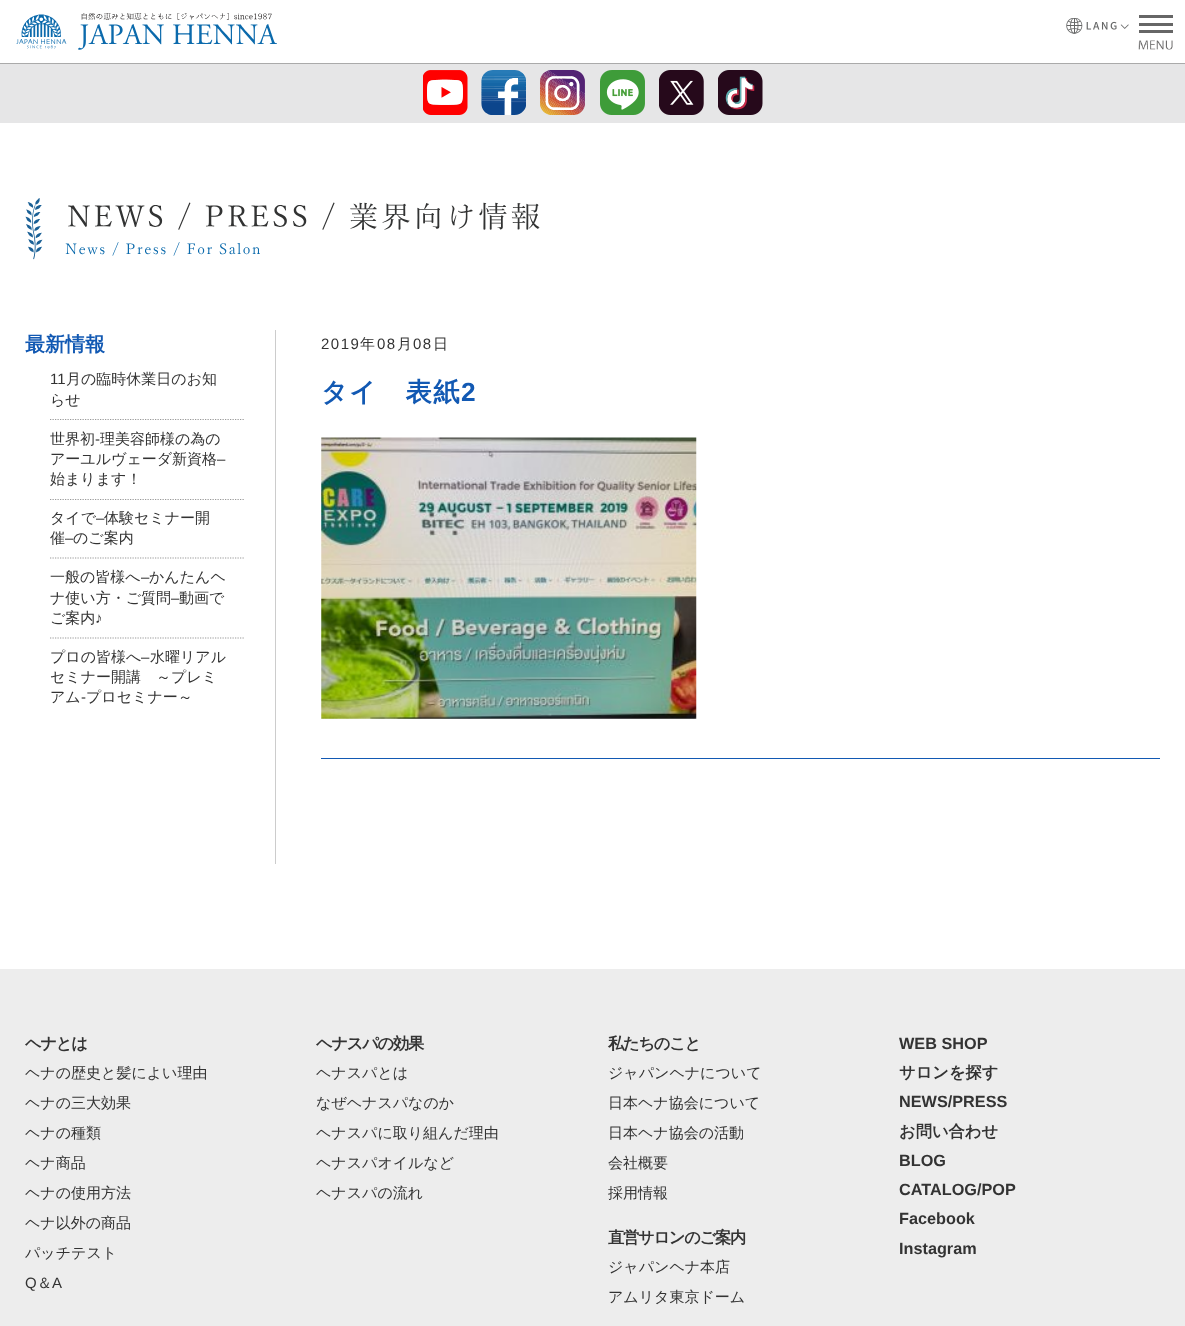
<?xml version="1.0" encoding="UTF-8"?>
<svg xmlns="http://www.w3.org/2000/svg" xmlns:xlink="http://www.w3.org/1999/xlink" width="1185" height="1326">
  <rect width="100%" height="100%" fill="#ffffff" />
  <rect y="63" width="1185" height="1" fill="#aaaaaa" />
  <image x="16" y="13" width="261" height="37" xlink:href="image1.png" />
  <image x="1066" y="18" width="63" height="16" xlink:href="image2.png" />
  <rect x="1139" y="15" width="34" height="3" fill="#666666" />
  <rect x="1139" y="23" width="34" height="3" fill="#666666" />
  <rect x="1139" y="30" width="34" height="3" fill="#666666" />
  <image x="1138" y="40" width="35" height="10" xlink:href="image3.png" />
  <rect y="64" width="1185" height="59" fill="#e6e6e7" />
  <image x="423" y="70" width="45" height="45" xlink:href="image4.png" />
  <image x="481" y="70" width="45" height="45" xlink:href="image5.png" />
  <image x="540" y="70" width="45" height="45" xlink:href="image6.png" />
  <image x="600" y="70" width="45" height="45" xlink:href="image7.png" />
  <image x="659" y="70" width="45" height="45" xlink:href="image8.png" />
  <image x="718" y="70" width="45" height="45" xlink:href="image9.png" />
  <image x="25" y="198" width="515" height="62" xlink:href="image10.png" />
  <path d="M 50 419.5 h 195" fill="none" stroke="#999999" stroke-width="1.2" stroke-dasharray="1.25 1.25" />
  <path d="M 50 499.5 h 195" fill="none" stroke="#999999" stroke-width="1.2" stroke-dasharray="1.25 1.25" />
  <path d="M 50 558 h 195" fill="none" stroke="#999999" stroke-width="1.2" stroke-dasharray="1.25 1.25" />
  <path d="M 50 638 h 195" fill="none" stroke="#999999" stroke-width="1.2" stroke-dasharray="1.25 1.25" />
  <rect x="275" y="330" width="1" height="534" fill="#cccccc" />
  <image x="321" y="437" width="376" height="282" xlink:href="image11.png" />
  <rect x="321" y="758" width="839" height="1" fill="#1259b3" />
  <rect y="969" width="1185" height="357" fill="#ededed" />
  <text x="25" y="351" style="font-family: WenQuanYi Zen Hei; font-size: 20px; font-weight: bold; fill: #1259b3">最新情報</text>
  <text x="50" y="384" style="font-family: Liberation Sans; font-size: 15px; fill: #333333">11</text>
  <text x="66" y="384" style="font-family: WenQuanYi Zen Hei; font-size: 15px; font-weight: 500; fill: #333333">月の臨時休業日のお知</text>
  <text x="50" y="405" style="font-family: WenQuanYi Zen Hei; font-size: 15px; font-weight: 500; fill: #333333">らせ</text>
  <text x="50" y="444" style="font-family: WenQuanYi Zen Hei; font-size: 15px; font-weight: 500; fill: #333333">世界初</text>
  <text x="95" y="444" style="font-family: Liberation Sans; font-size: 15px; fill: #333333">-</text>
  <text x="100" y="444" style="font-family: WenQuanYi Zen Hei; font-size: 15px; font-weight: 500; fill: #333333">理美容師様の為の</text>
  <text x="50" y="464" style="font-family: WenQuanYi Zen Hei; font-size: 15px; font-weight: 500; fill: #333333">アーユルヴェーダ新資格</text>
  <text x="217" y="464" style="font-family: Liberation Sans; font-size: 15px; fill: #333333">–</text>
  <text x="50" y="484" style="font-family: WenQuanYi Zen Hei; font-size: 15px; font-weight: 500; fill: #333333">始まります！</text>
  <text x="50" y="523" style="font-family: WenQuanYi Zen Hei; font-size: 15px; font-weight: 500; fill: #333333">タイで</text>
  <text x="96" y="523" style="font-family: Liberation Sans; font-size: 15px; fill: #333333">–</text>
  <text x="104" y="523" style="font-family: WenQuanYi Zen Hei; font-size: 15px; font-weight: 500; fill: #333333">体験セミナー開</text>
  <text x="50" y="543" style="font-family: WenQuanYi Zen Hei; font-size: 15px; font-weight: 500; fill: #333333">催</text>
  <text x="65" y="543" style="font-family: Liberation Sans; font-size: 15px; fill: #333333">–</text>
  <text x="73" y="543" style="font-family: WenQuanYi Zen Hei; font-size: 15px; font-weight: 500; fill: #333333">のご案内</text>
  <text x="50" y="582" style="font-family: WenQuanYi Zen Hei; font-size: 15px; font-weight: 500; fill: #333333">一般の皆様へ</text>
  <text x="141" y="582" style="font-family: Liberation Sans; font-size: 15px; fill: #333333">–</text>
  <text x="149" y="582" style="font-family: WenQuanYi Zen Hei; font-size: 15px; font-weight: 500; fill: #333333">かんたんヘ</text>
  <text x="50" y="603" style="font-family: WenQuanYi Zen Hei; font-size: 15px; font-weight: 500; fill: #333333">ナ使い方・ご質問</text>
  <text x="171" y="603" style="font-family: Liberation Sans; font-size: 15px; fill: #333333">–</text>
  <text x="179" y="603" style="font-family: WenQuanYi Zen Hei; font-size: 15px; font-weight: 500; fill: #333333">動画で</text>
  <text x="50" y="623" style="font-family: WenQuanYi Zen Hei; font-size: 15px; font-weight: 500; fill: #333333">ご案内</text>
  <text x="95" y="623" style="font-family: Liberation Sans; font-size: 15px; fill: #333333">♪</text>
  <text x="50" y="662" style="font-family: WenQuanYi Zen Hei; font-size: 15px; font-weight: 500; fill: #333333">プロの皆様へ</text>
  <text x="141" y="662" style="font-family: Liberation Sans; font-size: 15px; fill: #333333">–</text>
  <text x="150" y="662" style="font-family: WenQuanYi Zen Hei; font-size: 15px; font-weight: 500; fill: #333333">水曜リアル</text>
  <text x="50" y="682" style="font-family: WenQuanYi Zen Hei; font-size: 15px; font-weight: 500; fill: #333333">セミナー開講　～プレミ</text>
  <text x="50" y="702" style="font-family: WenQuanYi Zen Hei; font-size: 15px; font-weight: 500; fill: #333333">アム</text>
  <text x="81" y="702" style="font-family: Liberation Sans; font-size: 15px; fill: #333333">-</text>
  <text x="86" y="702" style="font-family: WenQuanYi Zen Hei; font-size: 15px; font-weight: 500; fill: #333333">プロセミナー～</text>
  <text x="321" y="349" style="font-family: Liberation Sans; font-size: 15px; letter-spacing: 1.5px; fill: #333333">2019</text>
  <text x="360" y="349" style="font-family: WenQuanYi Zen Hei; font-size: 15px; font-weight: 500; letter-spacing: 1.5px; fill: #333333">年</text>
  <text x="377" y="349" style="font-family: Liberation Sans; font-size: 15px; letter-spacing: 1.5px; fill: #333333">08</text>
  <text x="397" y="349" style="font-family: WenQuanYi Zen Hei; font-size: 15px; font-weight: 500; letter-spacing: 1.5px; fill: #333333">月</text>
  <text x="413" y="349" style="font-family: Liberation Sans; font-size: 15px; letter-spacing: 1.5px; fill: #333333">08</text>
  <text x="433" y="349" style="font-family: WenQuanYi Zen Hei; font-size: 15px; font-weight: 500; letter-spacing: 1.5px; fill: #333333">日</text>
  <text x="321" y="401" style="font-family: WenQuanYi Zen Hei; font-size: 26.25px; font-weight: bold; letter-spacing: 1.5px; fill: #1259b3">タイ　表紙</text>
  <text x="461" y="401" style="font-family: Liberation Sans; font-size: 26.25px; font-weight: bold; letter-spacing: 1.5px; fill: #1259b3">2</text>
  <text x="25" y="1049" style="font-family: WenQuanYi Zen Hei; font-size: 16.25px; font-weight: bold; letter-spacing: -1.25px; fill: #333333">ヘナとは</text>
  <text x="25" y="1078" style="font-family: WenQuanYi Zen Hei; font-size: 15px; font-weight: 500; fill: #333333">ヘナの歴史と髪によい理由</text>
  <text x="25" y="1108" style="font-family: WenQuanYi Zen Hei; font-size: 15px; font-weight: 500; fill: #333333">ヘナの三大効果</text>
  <text x="25" y="1138" style="font-family: WenQuanYi Zen Hei; font-size: 15px; font-weight: 500; fill: #333333">ヘナの種類</text>
  <text x="25" y="1168" style="font-family: WenQuanYi Zen Hei; font-size: 15px; font-weight: 500; fill: #333333">ヘナ商品</text>
  <text x="25" y="1198" style="font-family: WenQuanYi Zen Hei; font-size: 15px; font-weight: 500; fill: #333333">ヘナの使用方法</text>
  <text x="25" y="1228" style="font-family: WenQuanYi Zen Hei; font-size: 15px; font-weight: 500; fill: #333333">ヘナ以外の商品</text>
  <text x="25" y="1258" style="font-family: WenQuanYi Zen Hei; font-size: 15px; font-weight: 500; fill: #333333">パッチテスト</text>
  <text x="25" y="1288" style="font-family: Liberation Sans; font-size: 15px; fill: #333333">Q</text>
  <text x="37" y="1288" style="font-family: WenQuanYi Zen Hei; font-size: 15px; font-weight: 500; fill: #333333">＆</text>
  <text x="52" y="1288" style="font-family: Liberation Sans; font-size: 15px; fill: #333333">A</text>
  <text x="316" y="1049" style="font-family: WenQuanYi Zen Hei; font-size: 16.25px; font-weight: bold; letter-spacing: -1.25px; fill: #333333">ヘナスパの効果</text>
  <text x="316" y="1078" style="font-family: WenQuanYi Zen Hei; font-size: 15px; font-weight: 500; fill: #333333">ヘナスパとは</text>
  <text x="316" y="1108" style="font-family: WenQuanYi Zen Hei; font-size: 15px; font-weight: 500; fill: #333333">なぜヘナスパなのか</text>
  <text x="316" y="1138" style="font-family: WenQuanYi Zen Hei; font-size: 15px; font-weight: 500; fill: #333333">ヘナスパに取り組んだ理由</text>
  <text x="316" y="1168" style="font-family: WenQuanYi Zen Hei; font-size: 15px; font-weight: 500; fill: #333333">ヘナスパオイルなど</text>
  <text x="316" y="1198" style="font-family: WenQuanYi Zen Hei; font-size: 15px; font-weight: 500; fill: #333333">ヘナスパの流れ</text>
  <text x="608" y="1049" style="font-family: WenQuanYi Zen Hei; font-size: 16.25px; font-weight: bold; letter-spacing: -1.25px; fill: #333333">私たちのこと</text>
  <text x="608" y="1078" style="font-family: WenQuanYi Zen Hei; font-size: 15px; font-weight: 500; fill: #333333">ジャパンヘナについて</text>
  <text x="608" y="1108" style="font-family: WenQuanYi Zen Hei; font-size: 15px; font-weight: 500; fill: #333333">日本ヘナ協会について</text>
  <text x="608" y="1138" style="font-family: WenQuanYi Zen Hei; font-size: 15px; font-weight: 500; fill: #333333">日本ヘナ協会の活動</text>
  <text x="608" y="1168" style="font-family: WenQuanYi Zen Hei; font-size: 15px; font-weight: 500; fill: #333333">会社概要</text>
  <text x="608" y="1198" style="font-family: WenQuanYi Zen Hei; font-size: 15px; font-weight: 500; fill: #333333">採用情報</text>
  <text x="608" y="1243" style="font-family: WenQuanYi Zen Hei; font-size: 16.25px; font-weight: bold; letter-spacing: -1.25px; fill: #333333">直営サロンのご案内</text>
  <text x="608" y="1272" style="font-family: WenQuanYi Zen Hei; font-size: 15px; font-weight: 500; fill: #333333">ジャパンヘナ本店</text>
  <text x="608" y="1302" style="font-family: WenQuanYi Zen Hei; font-size: 15px; font-weight: 500; fill: #333333">アムリタ東京ドーム</text>
  <text x="899" y="1049" style="font-family: Liberation Sans; font-size: 16.25px; font-weight: bold; fill: #333333">WEB SHOP</text>
  <text x="899" y="1078" style="font-family: WenQuanYi Zen Hei; font-size: 16.25px; font-weight: bold; fill: #333333">サロンを探す</text>
  <text x="899" y="1107" style="font-family: Liberation Sans; font-size: 16.25px; font-weight: bold; fill: #333333">NEWS/PRESS</text>
  <text x="899" y="1137" style="font-family: WenQuanYi Zen Hei; font-size: 16.25px; font-weight: bold; fill: #333333">お問い合わせ</text>
  <text x="899" y="1166" style="font-family: Liberation Sans; font-size: 16.25px; font-weight: bold; fill: #333333">BLOG</text>
  <text x="899" y="1195" style="font-family: Liberation Sans; font-size: 16.25px; font-weight: bold; fill: #333333">CATALOG/POP</text>
  <text x="899" y="1224" style="font-family: Liberation Sans; font-size: 16.25px; font-weight: bold; fill: #333333">Facebook</text>
  <text x="899" y="1254" style="font-family: Liberation Sans; font-size: 16.25px; font-weight: bold; fill: #333333">Instagram</text>
</svg>
